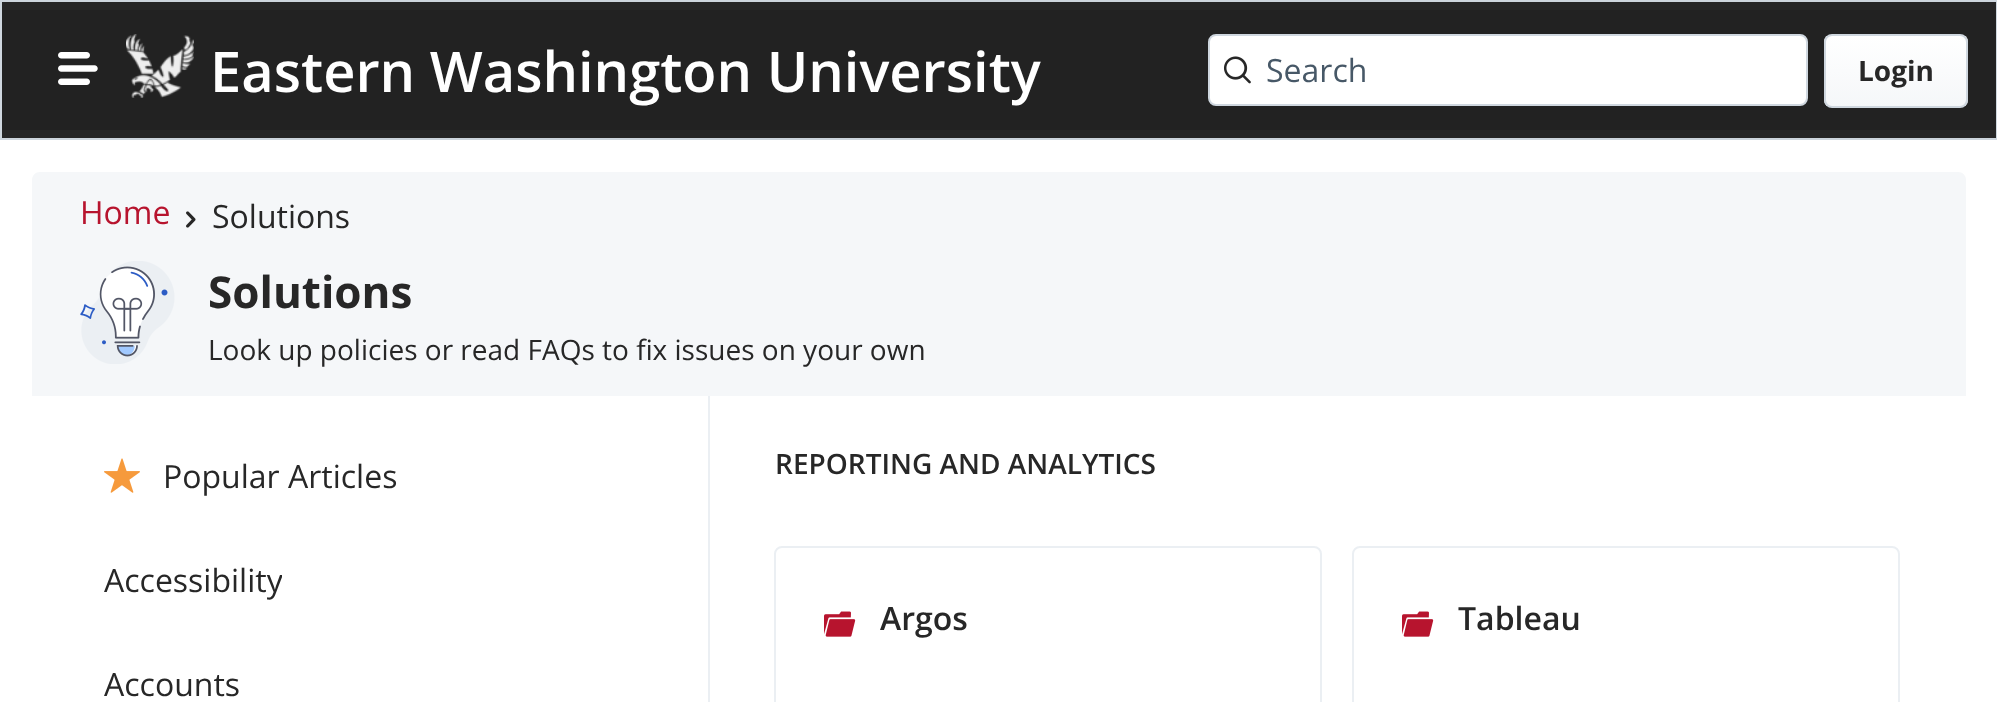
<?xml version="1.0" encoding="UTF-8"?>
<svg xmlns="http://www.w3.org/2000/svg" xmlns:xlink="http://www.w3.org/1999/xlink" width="1997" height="702">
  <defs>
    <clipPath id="clip1"><rect x="1824" y="34" width="144" height="74" rx="8" /></clipPath>
    <linearGradient id="g1" gradientUnits="userSpaceOnUse" x1="1896" y1="36" x2="1896" y2="106"><stop offset="0" stop-color="#ffffff" /><stop offset="1" stop-color="#f5f7f9" /></linearGradient>
    <clipPath id="clip2"><rect x="104" y="532" width="178" height="96" /></clipPath>
  </defs>
  <rect width="100%" height="100%" fill="#ffffff" />
  <rect x="1" y="1" width="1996" height="138" fill="#272727" stroke="#cfd7df" stroke-width="2" />
  <rect x="2" y="10" width="1994" height="120" fill="#222222" />
  <image x="58" y="52" width="40" height="33" xlink:href="image1.png" />
  <image x="126" y="34" width="68" height="64" xlink:href="image2.png" />
  <rect x="1209" y="35" width="598" height="70" rx="7" fill="#ffffff" stroke="#cfd7df" stroke-width="2" />
  <image x="1224" y="56" width="27" height="28" xlink:href="image3.png" />
  <g clip-path="url(#clip1)">
    <rect x="1824" y="36" width="144" height="70" fill="url(#g1)" />
  </g>
  <rect x="1825" y="35" width="142" height="72" rx="7" fill="none" stroke="#cfd7df" stroke-width="2" />
  <path d="M 40 172 h 1918 c 4.5 0 8 3.5 8 8 v 216 h -1934 v -216 c 0 -4.5 3.5 -8 8 -8 z" fill="#f5f7f9" />
  <image x="186" y="211" width="10" height="17" xlink:href="image4.png" />
  <image x="80" y="261" width="95" height="103" xlink:href="image5.png" />
  <image x="104" y="458" width="36" height="35" xlink:href="image6.png" />
  <rect x="708" y="396" width="2" height="306" fill="#ebeff3" />
  <rect x="775" y="547" width="546" height="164" rx="7" fill="none" stroke="#ebeff3" stroke-width="2" />
  <image x="824" y="611" width="32" height="26" xlink:href="image7.png" />
  <rect x="1353" y="547" width="546" height="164" rx="7" fill="none" stroke="#ebeff3" stroke-width="2" />
  <image x="1402" y="611" width="32" height="26" xlink:href="image7.png" />
  <text x="210" y="92" style="font-family: Open Sans; font-size: 56px; font-weight: 600; fill: #ffffff">Eastern Washington University</text>
  <text x="1266" y="82" style="font-family: Open Sans; font-size: 32px; fill: #475867">Search</text>
  <text x="1858" y="81" style="font-family: Open Sans; font-size: 28px; font-weight: bold; fill: #272727">Login</text>
  <text x="80" y="224" style="font-family: Open Sans; font-size: 32px; fill: #b7142e">Home</text>
  <text x="212" y="228" style="font-family: Open Sans; font-size: 32px; fill: #272727">Solutions</text>
  <text x="208" y="308" style="font-family: Open Sans; font-size: 44px; font-weight: bold; fill: #272727">Solutions</text>
  <text x="208" y="360" style="font-family: Open Sans; font-size: 28px; fill: #272727">Look up policies or read FAQs to fix issues on your own</text>
  <text x="163" y="488" style="font-family: Open Sans; font-size: 32px; fill: #272727">Popular Articles</text>
  <g clip-path="url(#clip2)">
    <text x="104" y="592" style="font-family: Open Sans; font-size: 32px; fill: #272727">Accessibility</text>
  </g>
  <text x="104" y="696" style="font-family: Open Sans; font-size: 32px; fill: #272727">Accounts</text>
  <text x="775" y="474" style="font-family: Open Sans; font-size: 28px; font-weight: 600; fill: #272727">REPORTING AND ANALYTICS</text>
  <text x="880" y="630" style="font-family: Open Sans; font-size: 32px; font-weight: 600; fill: #272727">Argos</text>
  <text x="1458" y="630" style="font-family: Open Sans; font-size: 32px; font-weight: 600; fill: #272727">Tableau</text>
</svg>
